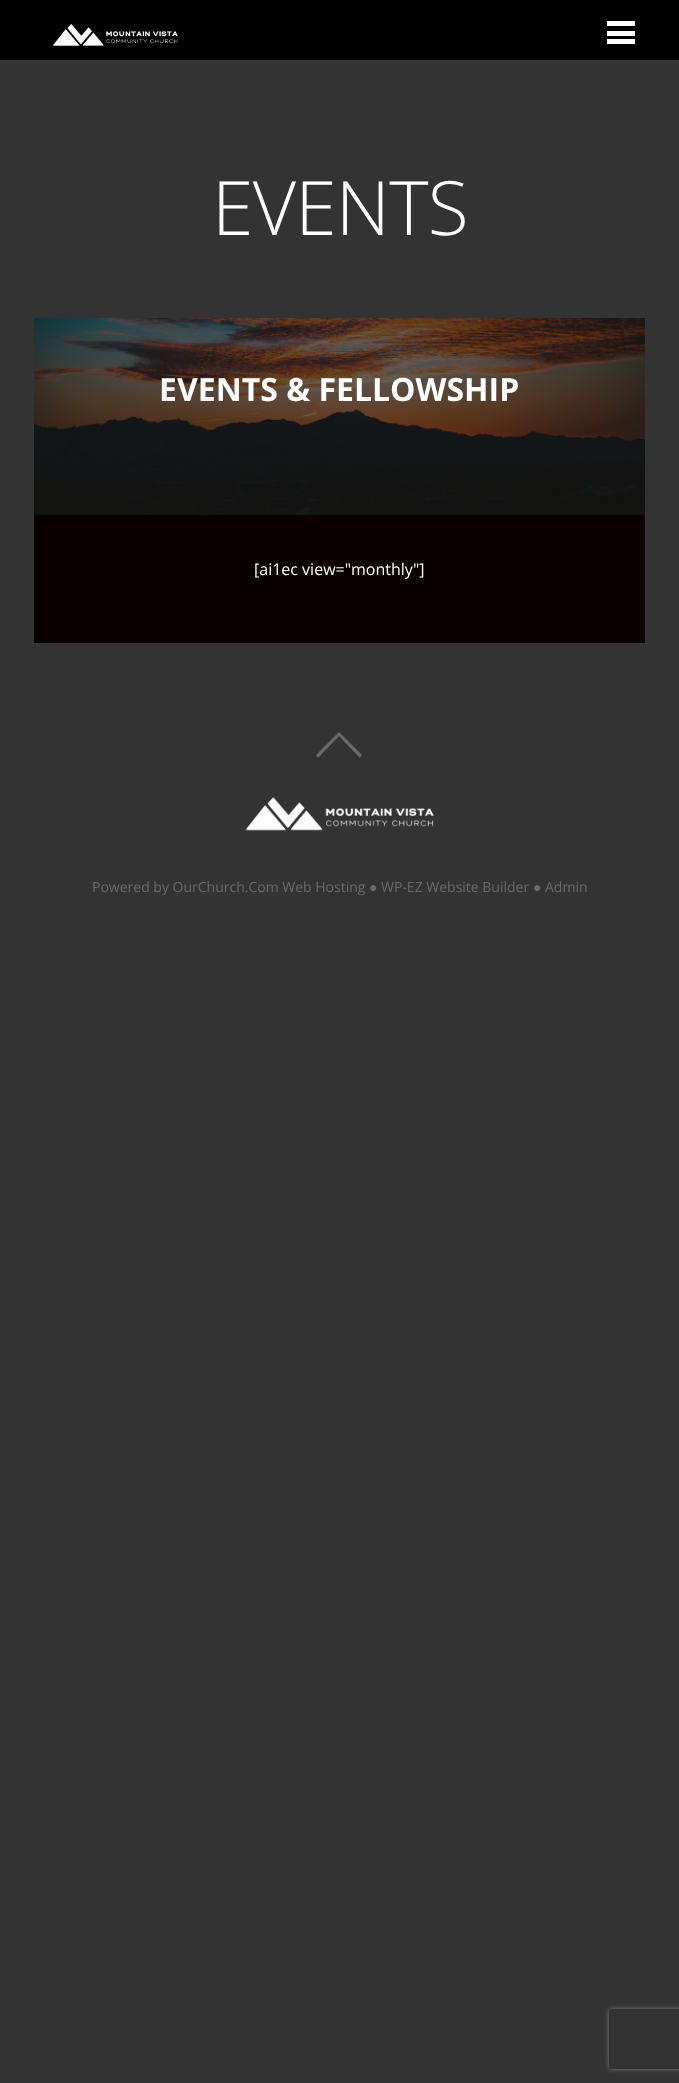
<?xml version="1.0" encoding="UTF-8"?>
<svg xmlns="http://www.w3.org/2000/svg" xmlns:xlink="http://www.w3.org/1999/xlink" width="679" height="2083">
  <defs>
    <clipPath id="clip1"><path d="M 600 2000 h 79 v 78 h -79 z m 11 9 h 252 c 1 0 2 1 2 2 v 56 c 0 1 -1 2 -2 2 h -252 c -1 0 -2 -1 -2 -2 v -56 c 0 -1 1 -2 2 -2 z" clip-rule="evenodd" /></clipPath>
  </defs>
  <rect width="100%" height="100%" fill="#333333" />
  <rect width="679" height="60" fill="#000000" />
  <image x="53" y="24" width="125" height="23" xlink:href="image1.png" />
  <rect x="607" y="21" width="28" height="5" fill="#ffffff" />
  <rect x="607" y="39" width="28" height="5" fill="#ffffff" />
  <rect x="607" y="31" width="28" height="5" fill="#ffffff" />
  <image x="34" y="318" width="611" height="197" xlink:href="image2.png" />
  <rect x="34" y="515" width="611" height="128" fill="#0a0000" />
  <path d="M 362 755 l -2 3 l -21 -22 l -21 22 l -2 -3 l 23 -23 z" fill="#6b6b6b" />
  <image x="245" y="797" width="189" height="34" xlink:href="image3.png" />
  <g clip-path="url(#clip1)">
    <rect x="609" y="2009" width="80" height="60" rx="2" fill="#808080" filter="blur(2.5px)" />
  </g>
  <text x="212" y="235" style="font-family: Open Sans; font-size: 75px; font-weight: 300; letter-spacing: -0.75px; fill: #ffffff">EVENTS</text>
  <text x="159" y="401" style="font-family: Open Sans; font-size: 32px; font-weight: bold; fill: #ffffff">EVENTS &amp; FELLOWSHIP</text>
  <text x="254" y="575" style="font-family: Open Sans; font-size: 16px; fill: #ffffff">[ai1ec view="monthly"]</text>
  <text x="92" y="892" style="font-family: Open Sans; font-size: 14px; fill: #6b6b6b">Powered by OurChurch.Com Web Hosting</text>
  <text x="369" y="892" style="font-family: Liberation Sans; font-size: 14px; fill: #6b6b6b">●</text>
  <text x="381" y="892" style="font-family: Open Sans; font-size: 14px; fill: #6b6b6b">WP-EZ Website Builder</text>
  <text x="533" y="892" style="font-family: Liberation Sans; font-size: 14px; fill: #6b6b6b">●</text>
  <text x="545" y="892" style="font-family: Open Sans; font-size: 14px; fill: #6b6b6b">Admin</text>
</svg>
